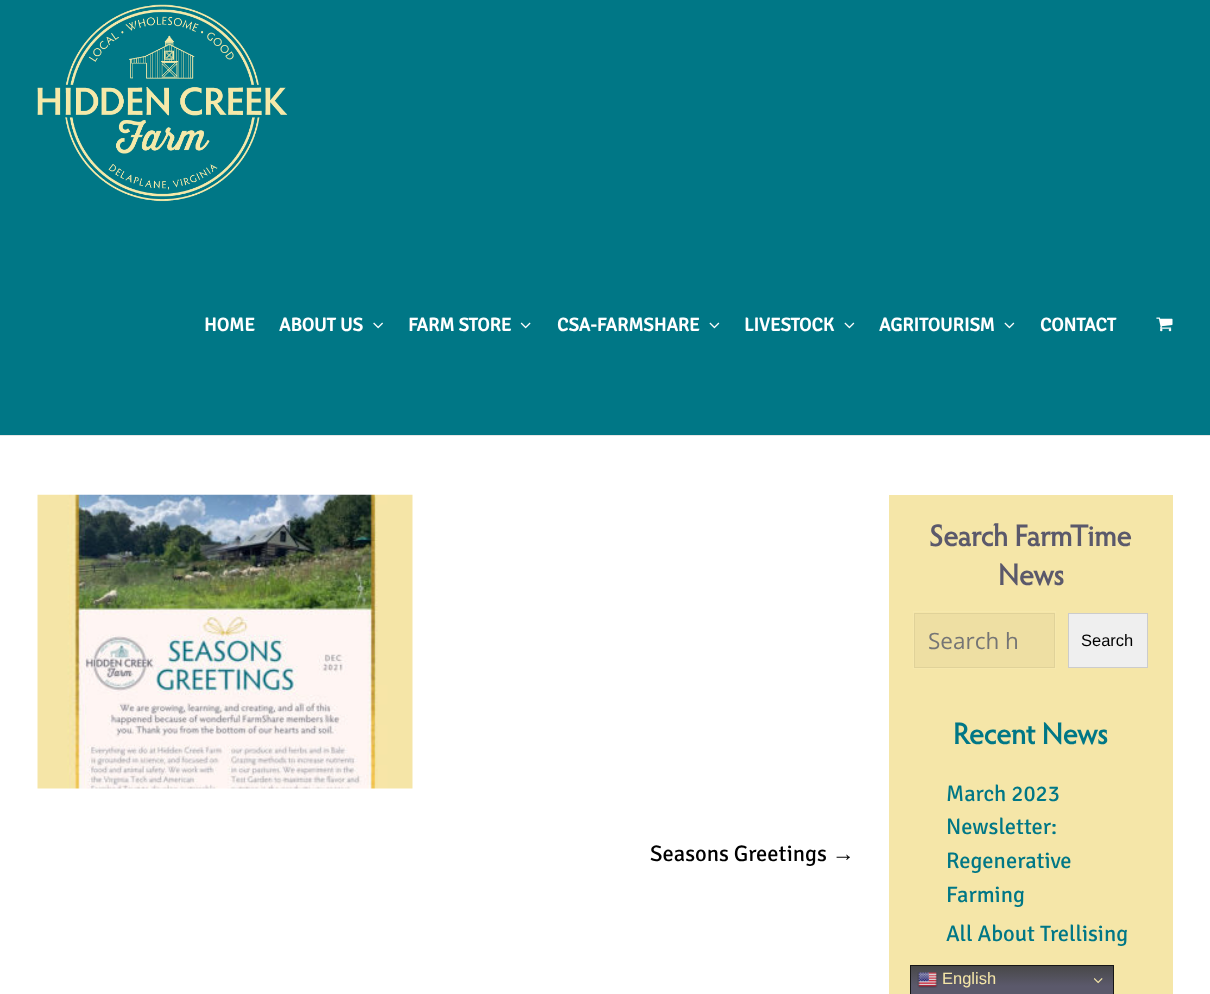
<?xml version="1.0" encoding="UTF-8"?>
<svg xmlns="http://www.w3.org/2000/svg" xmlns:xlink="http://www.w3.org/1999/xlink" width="1210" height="994">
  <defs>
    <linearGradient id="g1" gradientUnits="userSpaceOnUse" x1="1012" y1="965" x2="1012" y2="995"><stop offset="0" stop-color="#474747" /><stop offset="0.7" stop-color="#5b596b" /></linearGradient>
  </defs>
  <rect width="100%" height="100%" fill="#ffffff" />
  <rect y="435" width="1210" height="1" fill="#e6e6e6" />
  <rect width="1210" height="435" fill="#007786" />
  <image x="37" y="4" width="251" height="198" xlink:href="image1.png" />
  <image x="373" y="322" width="10" height="7" xlink:href="image2.png" />
  <image x="520" y="322" width="11" height="7" xlink:href="image3.png" />
  <image x="709" y="322" width="11" height="7" xlink:href="image4.png" />
  <image x="844" y="322" width="11" height="7" xlink:href="image4.png" />
  <image x="1004" y="322" width="11" height="7" xlink:href="image4.png" />
  <image x="1156" y="317" width="17" height="15" xlink:href="image5.png" />
  <image x="37" y="494" width="376" height="295" xlink:href="image6.png" />
  <rect x="889" y="495" width="284" height="499" fill="#f5e6a8" />
  <rect x="913.5" y="611.5" width="142" height="57" fill="none" stroke="#f6e8ad" />
  <rect x="914.5" y="613.5" width="140" height="54" fill="#eedfa3" stroke="#e0d299" />
  <rect x="1068.5" y="613.5" width="79" height="54" fill="#efefef" stroke="#cccccc" />
  <rect x="911" y="966" width="202" height="28" fill="url(#g1)" />
  <rect x="910.5" y="965.5" width="203" height="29" fill="none" stroke="#161616" />
  <image x="917" y="972" width="21" height="16" xlink:href="image7.png" />
  <image x="1094" y="978" width="9" height="6" xlink:href="image8.png" />
  <text x="204" y="331" style="font-family: Signika; font-size: 18.75px; font-weight: bold; fill: #ffffff">HOME</text>
  <text x="279" y="331" style="font-family: Signika; font-size: 18.75px; font-weight: bold; fill: #ffffff">ABOUT US</text>
  <text x="408" y="331" style="font-family: Signika; font-size: 18.75px; font-weight: bold; fill: #ffffff">FARM STORE</text>
  <text x="557" y="331" style="font-family: Signika; font-size: 18.75px; font-weight: bold; fill: #ffffff">CSA-FARMSHARE</text>
  <text x="744" y="331" style="font-family: Signika; font-size: 18.75px; font-weight: bold; fill: #ffffff">LIVESTOCK</text>
  <text x="879" y="331" style="font-family: Signika; font-size: 18.75px; font-weight: bold; fill: #ffffff">AGRITOURISM</text>
  <text x="1040" y="331" style="font-family: Signika; font-size: 18.75px; font-weight: bold; fill: #ffffff">CONTACT</text>
  <text x="650" y="861" style="font-family: Signika; font-size: 22.5px; font-weight: 300; fill: #000000">Seasons Greetings</text>
  <text x="832" y="861" style="font-family: Liberation Serif; font-size: 22.5px; fill: #000000">→</text>
  <text x="929" y="546" style="font-family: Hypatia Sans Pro; font-size: 30px; font-weight: bold; fill: #5b596b">Search FarmTime</text>
  <text x="998" y="585" style="font-family: Hypatia Sans Pro; font-size: 30px; font-weight: bold; fill: #5b596b">News</text>
  <text x="928" y="649" style="font-family: Open Sans; font-size: 22.5px; fill: #757575">Search h</text>
  <text x="1081" y="646" style="font-family: Liberation Sans; font-size: 16.5px; fill: #000000">Search</text>
  <text x="953" y="744" style="font-family: Hypatia Sans Pro; font-size: 30px; font-weight: bold; fill: #007786">Recent News</text>
  <text x="946" y="801" style="font-family: Signika; font-size: 22.5px; font-weight: 300; fill: #007786">March 2023</text>
  <text x="946" y="834" style="font-family: Signika; font-size: 22.5px; font-weight: 300; fill: #007786">Newsletter:</text>
  <text x="946" y="868" style="font-family: Signika; font-size: 22.5px; font-weight: 300; fill: #007786">Regenerative</text>
  <text x="946" y="902" style="font-family: Signika; font-size: 22.5px; font-weight: 300; fill: #007786">Farming</text>
  <text x="946" y="941" style="font-family: Signika; font-size: 22.5px; font-weight: 300; fill: #007786">All About Trellising</text>
  <text x="942" y="984" style="font-family: Liberation Sans; font-size: 16.5px; fill: #f5e6a8">English</text>
</svg>
